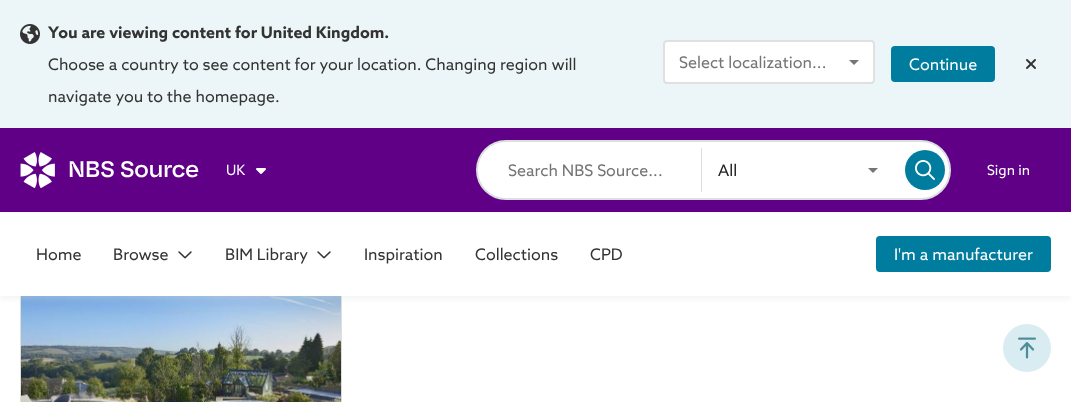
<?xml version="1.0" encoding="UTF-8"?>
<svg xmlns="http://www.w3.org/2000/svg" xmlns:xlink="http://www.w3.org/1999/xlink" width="1071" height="402">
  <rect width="100%" height="100%" fill="#ffffff" />
  <rect width="1071" height="128" fill="#ecf5f7" />
  <image x="20" y="24" width="20" height="20" xlink:href="image1.png" />
  <rect x="663" y="40" width="212" height="44" rx="5" fill="#ffffff" />
  <path d="M 667 40 h 8 v 44 h -8 c -2 0 -4 -2 -4 -4 v -36 c 0 -2 2 -4 4 -4 z m 0 2 h 8 v 40 h -8 c -1 0 -2 -1 -2 -2 v -36 c 0 -1 1 -2 2 -2 z" fill="#000000" fill-opacity="0.12" fill-rule="evenodd" />
  <path d="M 849 60 l 5 5 l 5 -5 z" fill="#757575" />
  <path d="M 675 40 h 196 c 2 0 4 2 4 4 v 36 c 0 2 -2 4 -4 4 h -196 z m 0 2 h 196 c 1 0 2 1 2 2 v 36 c 0 1 -1 2 -2 2 h -196 z" fill="#000000" fill-opacity="0.12" fill-rule="evenodd" />
  <rect x="892" y="47" width="102" height="34" rx="3" fill="#007d9e" stroke="#007d9e" stroke-width="2" />
  <image x="1026" y="59" width="10" height="10" xlink:href="image2.png" />
  <rect x="20.5" y="279.5" width="321" height="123" fill="none" stroke="#dbe0de" />
  <image x="21" y="296" width="320" height="106" xlink:href="image7.png" />
  <rect y="215" width="1071" height="84" fill="#dbe0de" fill-opacity="0.35" filter="blur(3px)" />
  <rect y="128" width="1071" height="84" fill="#5f0087" />
  <image x="20" y="152" width="35" height="36" xlink:href="image3.png" />
  <image x="256" y="168" width="10" height="6" xlink:href="image4.png" />
  <rect x="477" y="141" width="473" height="58" rx="29" fill="#ffffff" stroke="#dbe0de" stroke-width="2" />
  <rect x="701" y="148" width="1" height="44" fill="#dbe0de" />
  <path d="M 868 168 l 5 5 l 5 -5 z" fill="#757575" />
  <circle cx="925" cy="170" r="20" fill="#007d9e" />
  <image x="915" y="160" width="20" height="20" xlink:href="image5.png" />
  <rect y="213" width="1071" height="83" fill="#ffffff" />
  <image x="178" y="251" width="14" height="8" xlink:href="image6.png" />
  <image x="317" y="251" width="14" height="8" xlink:href="image6.png" />
  <rect x="877" y="237" width="173" height="34" rx="3" fill="#007d9e" stroke="#007d9e" stroke-width="2" />
  <circle cx="1027" cy="348" r="24" fill="#d9ecf1" />
  <image x="1018" y="337" width="18" height="22" xlink:href="image8.png" />
  <text x="48" y="38" style="font-family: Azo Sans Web; font-size: 16px; font-weight: bold; fill: #333333">You are viewing content for United Kingdom.</text>
  <text x="48" y="70" style="font-family: Azo Sans Web; font-size: 16px; fill: #333333">Choose a country to see content for your location. Changing region will</text>
  <text x="48" y="102" style="font-family: Azo Sans Web; font-size: 16px; fill: #333333">navigate you to the homepage.</text>
  <text x="679" y="68" style="font-family: Azo Sans Web; font-size: 16px; fill: #757575">Select localization...</text>
  <text x="909" y="70" style="font-family: Azo Sans Web; font-size: 16px; fill: #ffffff">Continue</text>
  <text x="68" y="177" style="font-family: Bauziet; font-size: 22.5px; font-weight: 600; fill: #ffffff">NBS Source</text>
  <text x="226" y="175" style="font-family: Azo Sans Web; font-size: 14px; fill: #ffffff">UK</text>
  <text x="508" y="176" style="font-family: Azo Sans Web; font-size: 16px; fill: #757575">Search NBS Source...</text>
  <text x="718" y="176" style="font-family: Azo Sans Web; font-size: 16px; fill: #212121">All</text>
  <text x="987" y="175" style="font-family: Azo Sans Web; font-size: 14px; fill: #ffffff">Sign in</text>
  <text x="36" y="260" style="font-family: Azo Sans Web; font-size: 16px; fill: #333333">Home</text>
  <text x="113" y="260" style="font-family: Azo Sans Web; font-size: 16px; fill: #333333">Browse</text>
  <text x="225" y="260" style="font-family: Azo Sans Web; font-size: 16px; fill: #333333">BIM Library</text>
  <text x="364" y="260" style="font-family: Azo Sans Web; font-size: 16px; fill: #333333">Inspiration</text>
  <text x="475" y="260" style="font-family: Azo Sans Web; font-size: 16px; fill: #333333">Collections</text>
  <text x="590" y="260" style="font-family: Azo Sans Web; font-size: 16px; fill: #333333">CPD</text>
  <text x="894" y="260" style="font-family: Azo Sans Web; font-size: 16px; fill: #ffffff">I'm a manufacturer</text>
</svg>
